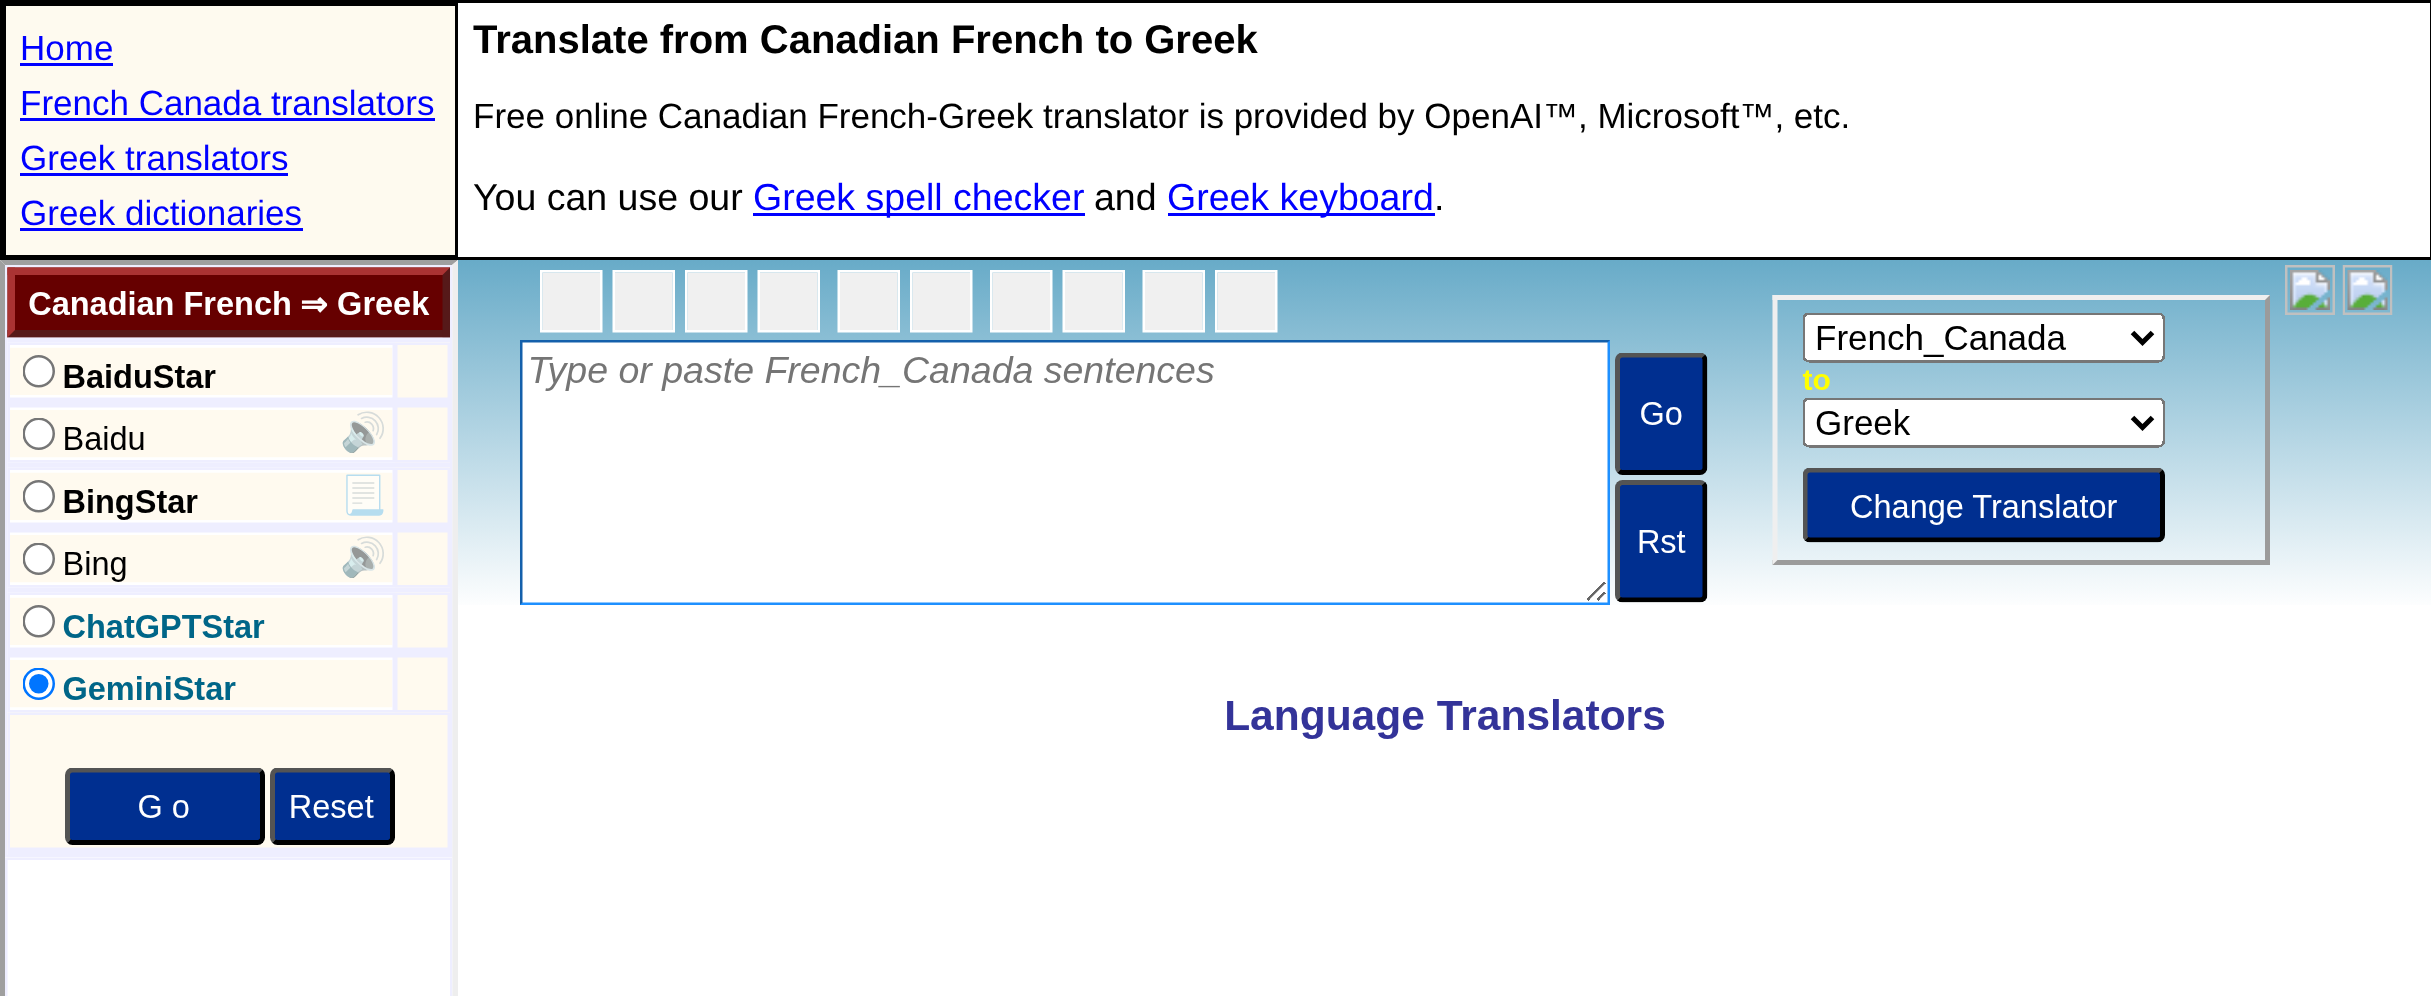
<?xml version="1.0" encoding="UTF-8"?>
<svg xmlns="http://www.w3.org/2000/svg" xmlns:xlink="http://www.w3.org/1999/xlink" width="2431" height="996">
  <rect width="100%" height="100%" fill="#ffffff" />
  <rect x="1.5" y="1.5" width="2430" height="257" fill="none" stroke="#000000" stroke-width="3" />
  <rect x="4.5" y="4.5" width="452" height="252" fill="#fefaef" stroke="#000000" stroke-width="3" />
  <rect x="20" y="63" width="93" height="3" fill="#0000ff" />
  <rect x="20" y="118" width="415" height="3" fill="#0000ff" />
  <rect x="20" y="173" width="268" height="3" fill="#0000ff" />
  <rect x="20" y="228" width="283" height="3" fill="#0000ff" />
  <rect x="753" y="213" width="332" height="3" fill="#0000ff" />
  <rect x="1168" y="213" width="267" height="3" fill="#0000ff" />
  <path d="M 0 260 h 458 l -6 5 h -447 z" fill="#9f9f9f" />
  <path d="M 0 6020 v -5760 l 5 5 v 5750 z" fill="#9f9f9f" />
  <path d="M 458 260 v 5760 l -6 -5 v -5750 z" fill="#eeeeee" />
  <image x="5" y="265" width="448" height="731" xlink:href="image1.png" />
  <image x="458" y="260" width="1973" height="345" xlink:href="image2.png" />
  <image x="1227" y="699" width="438" height="40" xlink:href="image3.png" />
  <text x="20" y="60" style="font-family: Liberation Sans; font-size: 35px; fill: #0000ff">Home</text>
  <text x="20" y="115" style="font-family: Liberation Sans; font-size: 35px; fill: #0000ff">French Canada translators</text>
  <text x="20" y="170" style="font-family: Liberation Sans; font-size: 35px; fill: #0000ff">Greek translators</text>
  <text x="20" y="225" style="font-family: Liberation Sans; font-size: 35px; fill: #0000ff">Greek dictionaries</text>
  <text x="473" y="53" style="font-family: Liberation Sans; font-size: 40px; font-weight: bold; fill: #000000">Translate from Canadian French to Greek</text>
  <text x="473" y="128" style="font-family: Liberation Sans; font-size: 35px; fill: #000000">Free online Canadian French-Greek translator is provided by OpenAI™, Microsoft™, etc.</text>
  <text x="473" y="210" style="font-family: Liberation Sans; font-size: 37.5px; fill: #000000">You can use our</text>
  <text x="753" y="210" style="font-family: Liberation Sans; font-size: 37.5px; fill: #0000ff">Greek spell checker</text>
  <text x="1094" y="210" style="font-family: Liberation Sans; font-size: 37.5px; fill: #000000">and</text>
  <text x="1167" y="210" style="font-family: Liberation Sans; font-size: 37.5px; fill: #0000ff">Greek keyboard</text>
  <text x="1434" y="210" style="font-family: Liberation Sans; font-size: 37.5px; fill: #000000">.</text>
</svg>
